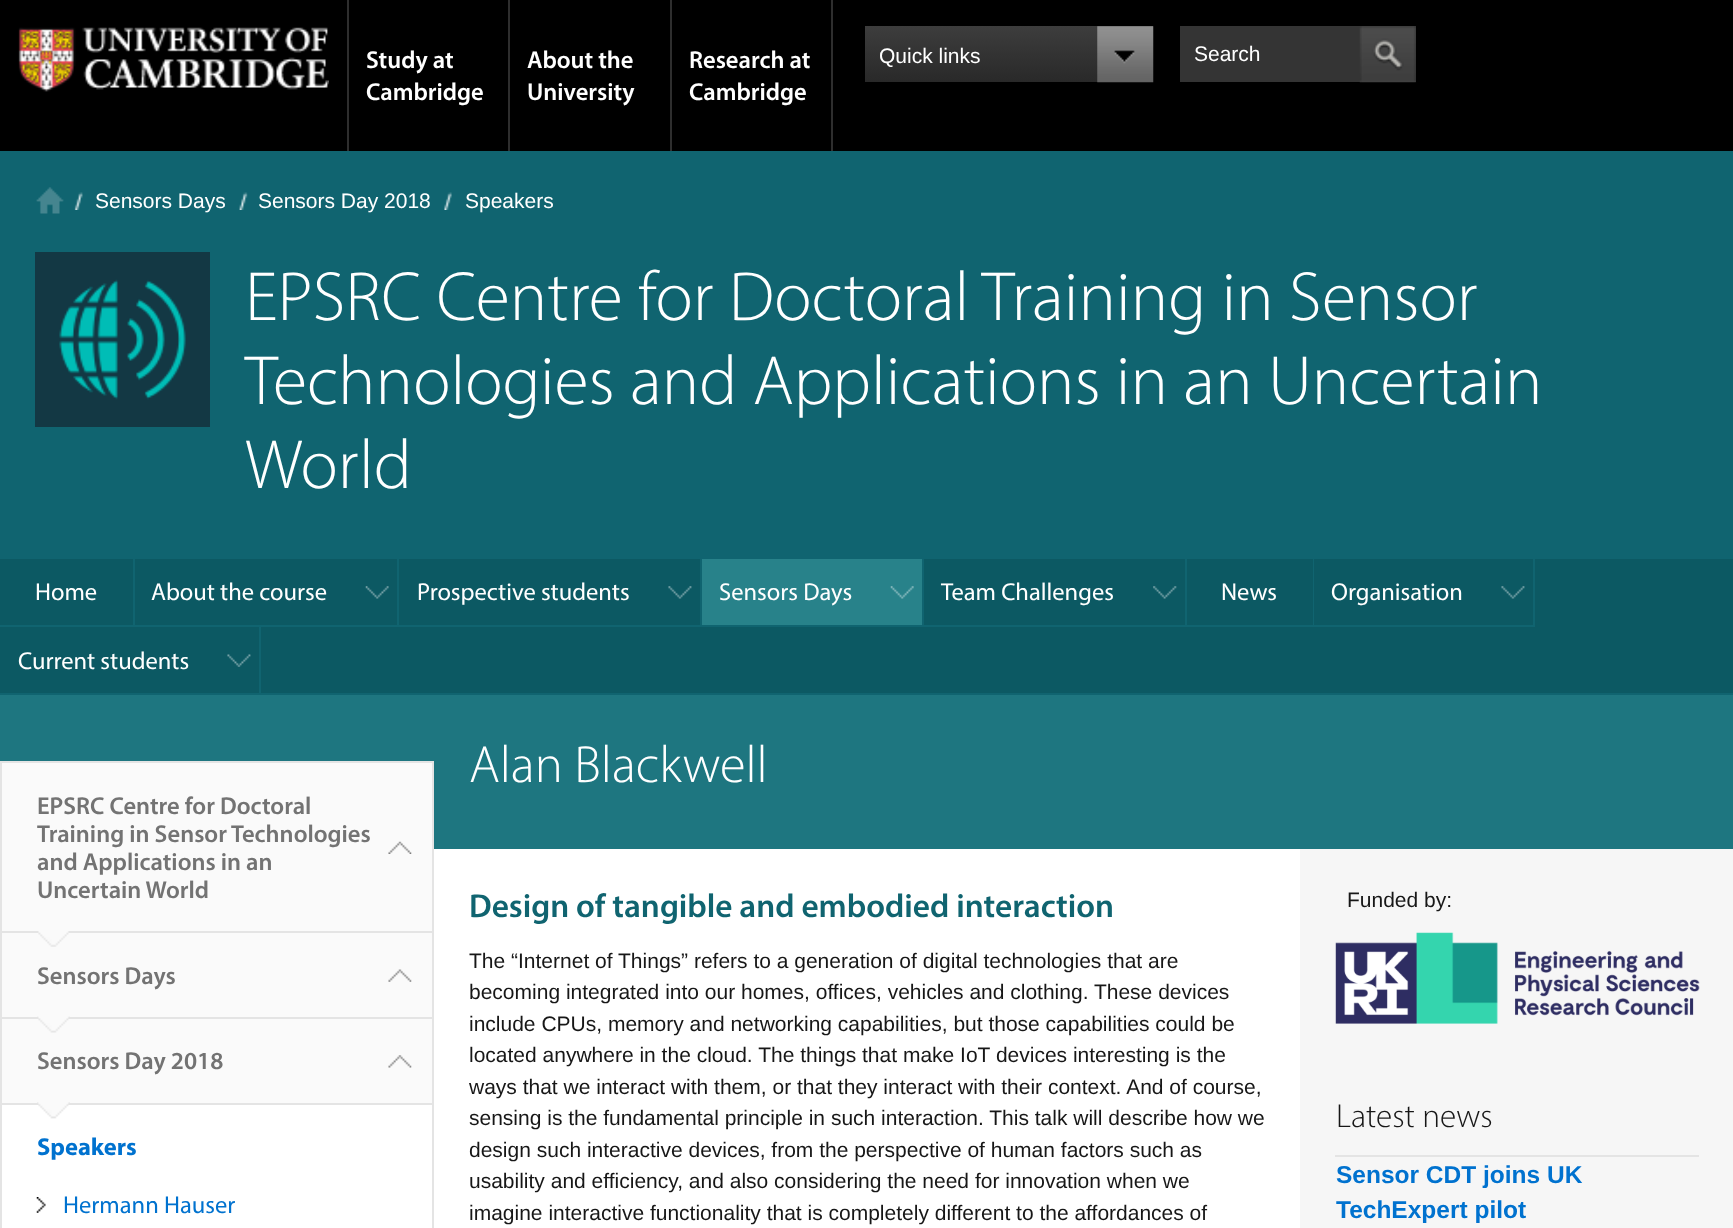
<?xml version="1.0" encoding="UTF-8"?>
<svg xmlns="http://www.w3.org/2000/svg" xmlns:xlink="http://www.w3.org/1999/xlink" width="1733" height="1228">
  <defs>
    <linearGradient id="g1" gradientUnits="userSpaceOnUse" x1="1009" y1="26" x2="1009" y2="82"><stop offset="0" stop-color="#3d3d3d" /><stop offset="1" stop-color="#292929" /></linearGradient>
  </defs>
  <rect width="100%" height="100%" fill="#000000" />
  <image x="18" y="27" width="311" height="65" xlink:href="image1.png" />
  <rect x="347" width="2" height="151" fill="#2e2e2e" />
  <rect x="508" width="2" height="151" fill="#2e2e2e" />
  <rect x="670" width="2" height="151" fill="#2e2e2e" />
  <rect x="831" width="2" height="151" fill="#2e2e2e" />
  <rect x="865" y="26" width="288" height="56" fill="url(#g1)" />
  <image x="1097" y="26" width="57" height="57" xlink:href="image2.png" />
  <rect x="1180" y="26" width="236" height="56" fill="#343434" />
  <image x="1359" y="26" width="57" height="57" xlink:href="image3.png" />
  <rect y="151" width="1733" height="406" fill="#106470" />
  <image x="36" y="187" width="28" height="27" xlink:href="image4.png" />
  <image x="74" y="192" width="9" height="18" xlink:href="image5.png" />
  <image x="239" y="192" width="9" height="18" xlink:href="image6.png" />
  <image x="444" y="192" width="8" height="18" xlink:href="image7.png" />
  <image x="35" y="252" width="175" height="175" xlink:href="image8.png" />
  <rect x="261" y="559" width="1472" height="134" fill="#0c5963" />
  <rect x="1535" y="557" width="198" height="2" fill="#106470" />
  <rect x="261" y="693" width="1472" height="2" fill="#106470" />
  <rect y="559" width="133" height="66" fill="#0c5963" />
  <rect y="557" width="924" height="2" fill="#106470" />
  <rect x="133" y="557" width="2" height="70" fill="#106470" />
  <rect x="135" y="559" width="126" height="66" fill="#0c5963" />
  <image x="365" y="586" width="24" height="13" xlink:href="image9.png" />
  <rect x="397" y="557" width="2" height="70" fill="#106470" />
  <rect y="625" width="399" height="2" fill="#106470" />
  <image x="668" y="586" width="24" height="13" xlink:href="image10.png" />
  <rect x="700" y="557" width="2" height="70" fill="#106470" />
  <rect x="399" y="625" width="303" height="2" fill="#106470" />
  <rect x="702" y="559" width="220" height="66" fill="#28828a" />
  <image x="890" y="586" width="24" height="13" xlink:href="image11.png" />
  <rect x="922" y="557" width="2" height="70" fill="#106470" />
  <rect x="702" y="625" width="222" height="2" fill="#106470" />
  <image x="1153" y="586" width="24" height="13" xlink:href="image12.png" />
  <rect x="924" y="557" width="611" height="2" fill="#106470" />
  <rect x="1185" y="557" width="2" height="70" fill="#106470" />
  <rect x="924" y="625" width="263" height="2" fill="#106470" />
  <rect x="1313" y="557" width="1" height="70" fill="#106470" />
  <rect x="1187" y="625" width="127" height="2" fill="#106470" />
  <image x="1501" y="586" width="24" height="13" xlink:href="image13.png" />
  <rect x="1533" y="557" width="2" height="70" fill="#106470" />
  <rect x="1314" y="625" width="221" height="2" fill="#106470" />
  <rect y="627" width="259" height="66" fill="#0c5963" />
  <image x="227" y="654" width="24" height="13" xlink:href="image14.png" />
  <rect x="259" y="625" width="2" height="70" fill="#106470" />
  <rect y="693" width="261" height="2" fill="#106470" />
  <rect y="695" width="1733" height="154" fill="#1e7680" />
  <rect x="434" y="849" width="866" height="379" fill="#ffffff" />
  <rect y="761" width="434" height="2" fill="#e4e4e4" />
  <rect x="432" y="761" width="2" height="467" fill="#e4e4e4" />
  <rect y="761" width="2" height="467" fill="#e4e4e4" />
  <rect x="2" y="1105" width="430" height="123" fill="#ffffff" />
  <rect x="2" y="763" width="430" height="168" fill="#fafafa" />
  <image x="388" y="841" width="24" height="13" xlink:href="image15.png" />
  <rect x="2" y="931" width="430" height="2" fill="#e4e4e4" />
  <rect x="2" y="933" width="430" height="84" fill="#fafafa" />
  <image x="38" y="931" width="31" height="16" xlink:href="image16.png" />
  <image x="388" y="969" width="24" height="13" xlink:href="image17.png" />
  <rect x="2" y="1017" width="430" height="2" fill="#e4e4e4" />
  <rect x="2" y="1019" width="430" height="84" fill="#fafafa" />
  <image x="37" y="1016" width="33" height="17" xlink:href="image18.png" />
  <image x="388" y="1055" width="24" height="13" xlink:href="image19.png" />
  <rect x="2" y="1103" width="430" height="2" fill="#e4e4e4" />
  <image x="37" y="1102" width="33" height="17" xlink:href="image20.png" />
  <image x="36" y="1197" width="10" height="16" xlink:href="image21.png" />
  <rect x="1300" y="849" width="433" height="379" fill="#f6f6f6" />
  <image x="1335" y="932" width="365" height="92" xlink:href="image22.png" />
  <rect x="1335" y="1155" width="364" height="2" fill="#e4e4e4" />
  <text x="366" y="68" style="font-family: Myriad; font-size: 24.5px; font-weight: 600; fill: #ffffff">Study at</text>
  <text x="366" y="100" style="font-family: Myriad; font-size: 24.5px; font-weight: 600; fill: #ffffff">Cambridge</text>
  <text x="527" y="68" style="font-family: Myriad; font-size: 24.5px; font-weight: 600; fill: #ffffff">About the</text>
  <text x="527" y="100" style="font-family: Myriad; font-size: 24.5px; font-weight: 600; fill: #ffffff">University</text>
  <text x="689" y="68" style="font-family: Myriad; font-size: 24.5px; font-weight: 600; fill: #ffffff">Research at</text>
  <text x="689" y="100" style="font-family: Myriad; font-size: 24.5px; font-weight: 600; fill: #ffffff">Cambridge</text>
  <text x="879" y="63" style="font-family: Liberation Sans; font-size: 21px; fill: #ffffff">Quick links</text>
  <text x="1194" y="61" style="font-family: Liberation Sans; font-size: 21px; fill: #ffffff">Search</text>
  <text x="95" y="208" style="font-family: Liberation Sans; font-size: 21px; fill: #ffffff">Sensors Days</text>
  <text x="258" y="208" style="font-family: Liberation Sans; font-size: 21px; fill: #ffffff">Sensors Day 2018</text>
  <text x="465" y="208" style="font-family: Liberation Sans; font-size: 21px; fill: #ffffff">Speakers</text>
  <text x="245" y="320" style="font-family: Myriad; font-size: 70px; font-weight: 300; fill: #ffffff">EPSRC Centre for Doctoral Training in Sensor</text>
  <text x="245" y="404" style="font-family: Myriad; font-size: 70px; font-weight: 300; fill: #ffffff">Technologies and Applications in an Uncertain</text>
  <text x="245" y="488" style="font-family: Myriad; font-size: 70px; font-weight: 300; fill: #ffffff">World</text>
  <text x="35" y="600" style="font-family: Myriad; font-size: 24.5px; fill: #ffffff">Home</text>
  <text x="151" y="600" style="font-family: Myriad; font-size: 24.5px; fill: #ffffff">About the course</text>
  <text x="417" y="600" style="font-family: Myriad; font-size: 24.5px; fill: #ffffff">Prospective students</text>
  <text x="719" y="600" style="font-family: Myriad; font-size: 24.5px; fill: #ffffff">Sensors Days</text>
  <text x="941" y="600" style="font-family: Myriad; font-size: 24.5px; fill: #ffffff">Team Challenges</text>
  <text x="1221" y="600" style="font-family: Myriad; font-size: 24.5px; fill: #ffffff">News</text>
  <text x="1331" y="600" style="font-family: Myriad; font-size: 24.5px; fill: #ffffff">Organisation</text>
  <text x="18" y="669" style="font-family: Myriad; font-size: 24.5px; fill: #ffffff">Current students</text>
  <text x="469" y="782" style="font-family: Myriad; font-size: 52.5px; font-weight: 300; fill: #ffffff">Alan Blackwell</text>
  <text x="37" y="814" style="font-family: Myriad; font-size: 24.5px; font-weight: 600; fill: #737373">EPSRC Centre for Doctoral</text>
  <text x="37" y="842" style="font-family: Myriad; font-size: 24.5px; font-weight: 600; fill: #737373">Training in Sensor Technologies</text>
  <text x="37" y="870" style="font-family: Myriad; font-size: 24.5px; font-weight: 600; fill: #737373">and Applications in an</text>
  <text x="37" y="898" style="font-family: Myriad; font-size: 24.5px; font-weight: 600; fill: #737373">Uncertain World</text>
  <text x="37" y="984" style="font-family: Myriad; font-size: 24.5px; font-weight: 600; fill: #737373">Sensors Days</text>
  <text x="37" y="1069" style="font-family: Myriad; font-size: 24.5px; font-weight: 600; fill: #737373">Sensors Day 2018</text>
  <text x="37" y="1155" style="font-family: Myriad; font-size: 24.5px; font-weight: bold; fill: #0072cf">Speakers</text>
  <text x="63" y="1213" style="font-family: Myriad; font-size: 24.5px; fill: #0072cf">Hermann Hauser</text>
  <text x="469" y="917" style="font-family: Myriad; font-size: 33.25px; font-weight: 600; fill: #106470">Design of tangible and embodied interaction</text>
  <text x="469" y="968" style="font-family: Liberation Sans; font-size: 21px; fill: #171717">The “Internet of Things” refers to a generation of digital technologies that are</text>
  <text x="469" y="999" style="font-family: Liberation Sans; font-size: 21px; fill: #171717">becoming integrated into our homes, offices, vehicles and clothing. These devices</text>
  <text x="469" y="1031" style="font-family: Liberation Sans; font-size: 21px; fill: #171717">include CPUs, memory and networking capabilities, but those capabilities could be</text>
  <text x="469" y="1062" style="font-family: Liberation Sans; font-size: 21px; fill: #171717">located anywhere in the cloud. The things that make IoT devices interesting is the</text>
  <text x="469" y="1094" style="font-family: Liberation Sans; font-size: 21px; fill: #171717">ways that we interact with them, or that they interact with their context. And of course,</text>
  <text x="469" y="1125" style="font-family: Liberation Sans; font-size: 21px; fill: #171717">sensing is the fundamental principle in such interaction. This talk will describe how we</text>
  <text x="469" y="1157" style="font-family: Liberation Sans; font-size: 21px; fill: #171717">design such interactive devices, from the perspective of human factors such as</text>
  <text x="469" y="1188" style="font-family: Liberation Sans; font-size: 21px; fill: #171717">usability and efficiency, and also considering the need for innovation when we</text>
  <text x="469" y="1220" style="font-family: Liberation Sans; font-size: 21px; fill: #171717">imagine interactive functionality that is completely different to the affordances of</text>
  <text x="1347" y="907" style="font-family: Liberation Sans; font-size: 21px; fill: #171717">Funded by:</text>
  <text x="1336" y="1127" style="font-family: Myriad; font-size: 33.25px; font-weight: 300; fill: #171717">Latest news</text>
  <text x="1336" y="1183" style="font-family: Liberation Sans; font-size: 24.5px; font-weight: bold; fill: #0072cf">Sensor CDT joins UK</text>
  <text x="1336" y="1218" style="font-family: Liberation Sans; font-size: 24.5px; font-weight: bold; fill: #0072cf">TechExpert pilot</text>
</svg>
